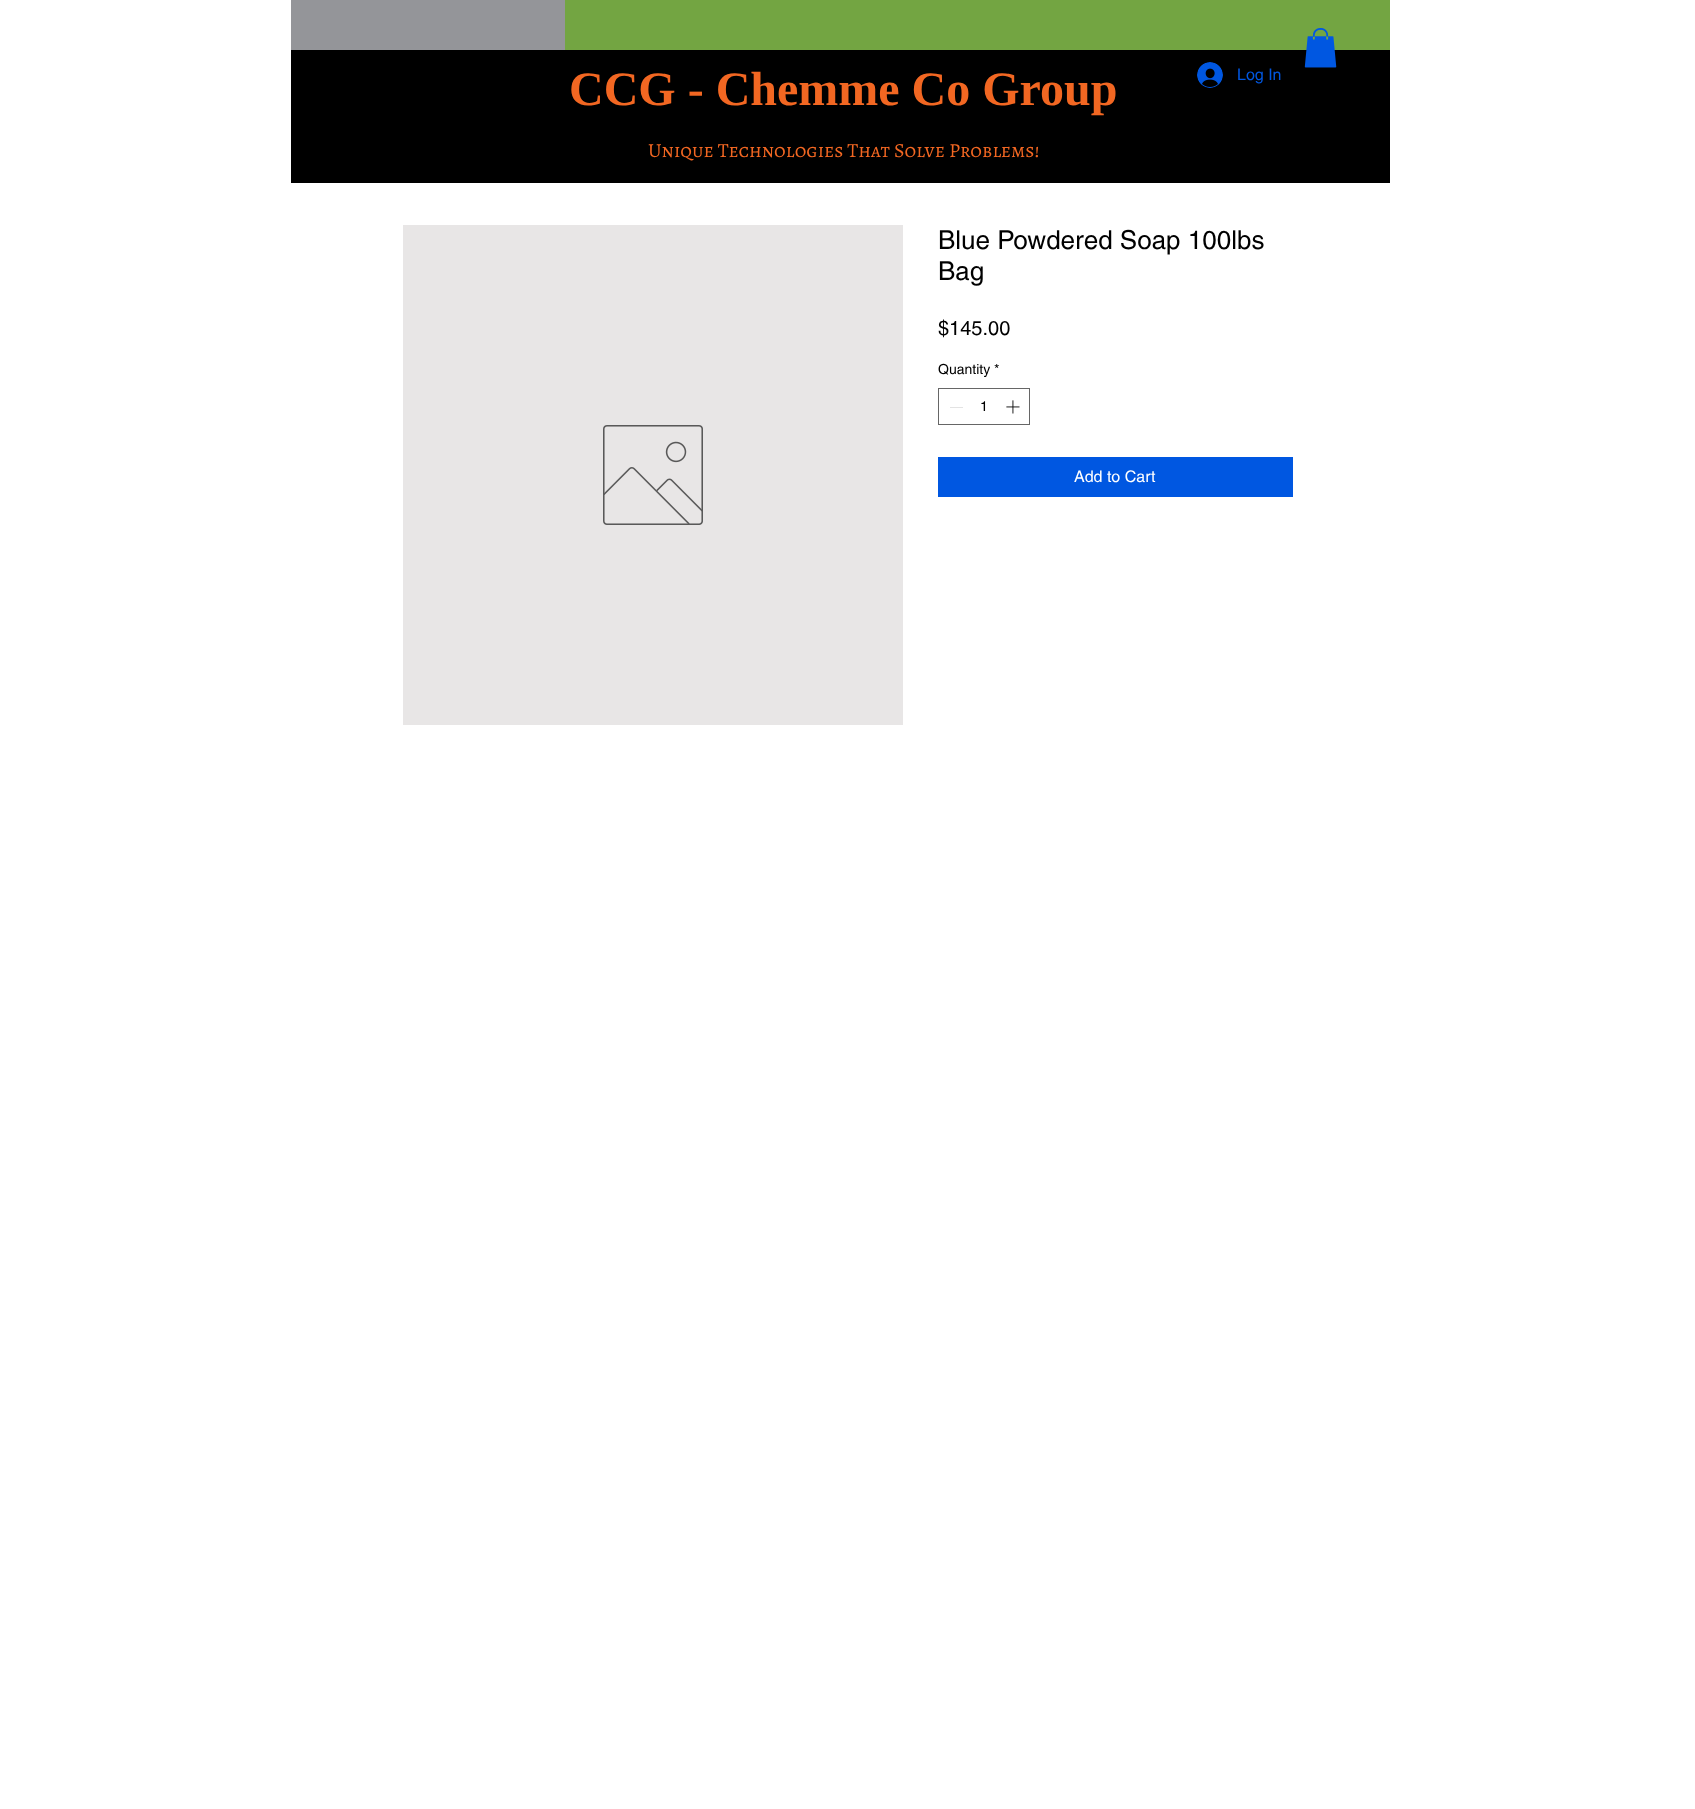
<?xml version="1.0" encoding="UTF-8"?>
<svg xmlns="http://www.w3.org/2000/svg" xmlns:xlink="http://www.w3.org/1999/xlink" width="1695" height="1809">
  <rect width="100%" height="100%" fill="#ffffff" />
  <rect x="565" width="825" height="50" fill="#73a542" />
  <rect x="291" y="50" width="1099" height="133" fill="#000000" />
  <image x="1304" y="28" width="33" height="40" xlink:href="image1.png" />
  <rect x="291" width="274" height="50" fill="#949599" />
  <image x="1197" y="62" width="26" height="26" xlink:href="image2.png" />
  <rect x="403" y="225" width="500" height="500" fill="#e8e6e6" />
  <image x="603" y="425" width="100" height="100" xlink:href="image3.png" />
  <rect x="938.5" y="388.5" width="91" height="36" fill="none" stroke="#666666" />
  <rect x="950" y="407" width="13" height="1" fill="#e3e3e3" />
  <image x="1006" y="400" width="14" height="14" xlink:href="image4.png" />
  <rect x="938" y="457" width="355" height="40" fill="#0057e1" />
  <text x="569" y="105" style="font-family: Liberation Serif; font-size: 48px; font-weight: bold; fill: #f26722">CCG - Chemme Co Group</text>
  <text x="648" y="157" style="font-family: Alegreya SC; font-size: 20px; fill: #f26722">Unique Technologies That Solve Problems!</text>
  <text x="1237" y="80" style="font-family: helvetica; font-size: 16px; fill: #0057e1">Log In</text>
  <text x="938" y="249" style="font-family: helvetica; font-size: 26px; fill: #000000">Blue Powdered Soap 100lbs</text>
  <text x="938" y="280" style="font-family: helvetica; font-size: 26px; fill: #000000">Bag</text>
  <text x="938" y="335" style="font-family: helvetica; font-size: 20px; fill: #000000">$145.00</text>
  <text x="938" y="374" style="font-family: helvetica; font-size: 14px; fill: #000000">Quantity *</text>
  <text x="980" y="411" style="font-family: helvetica; font-size: 14px; fill: #000000">1</text>
  <text x="1074" y="482" style="font-family: helvetica; font-size: 16px; fill: #ffffff">Add to Cart</text>
</svg>
